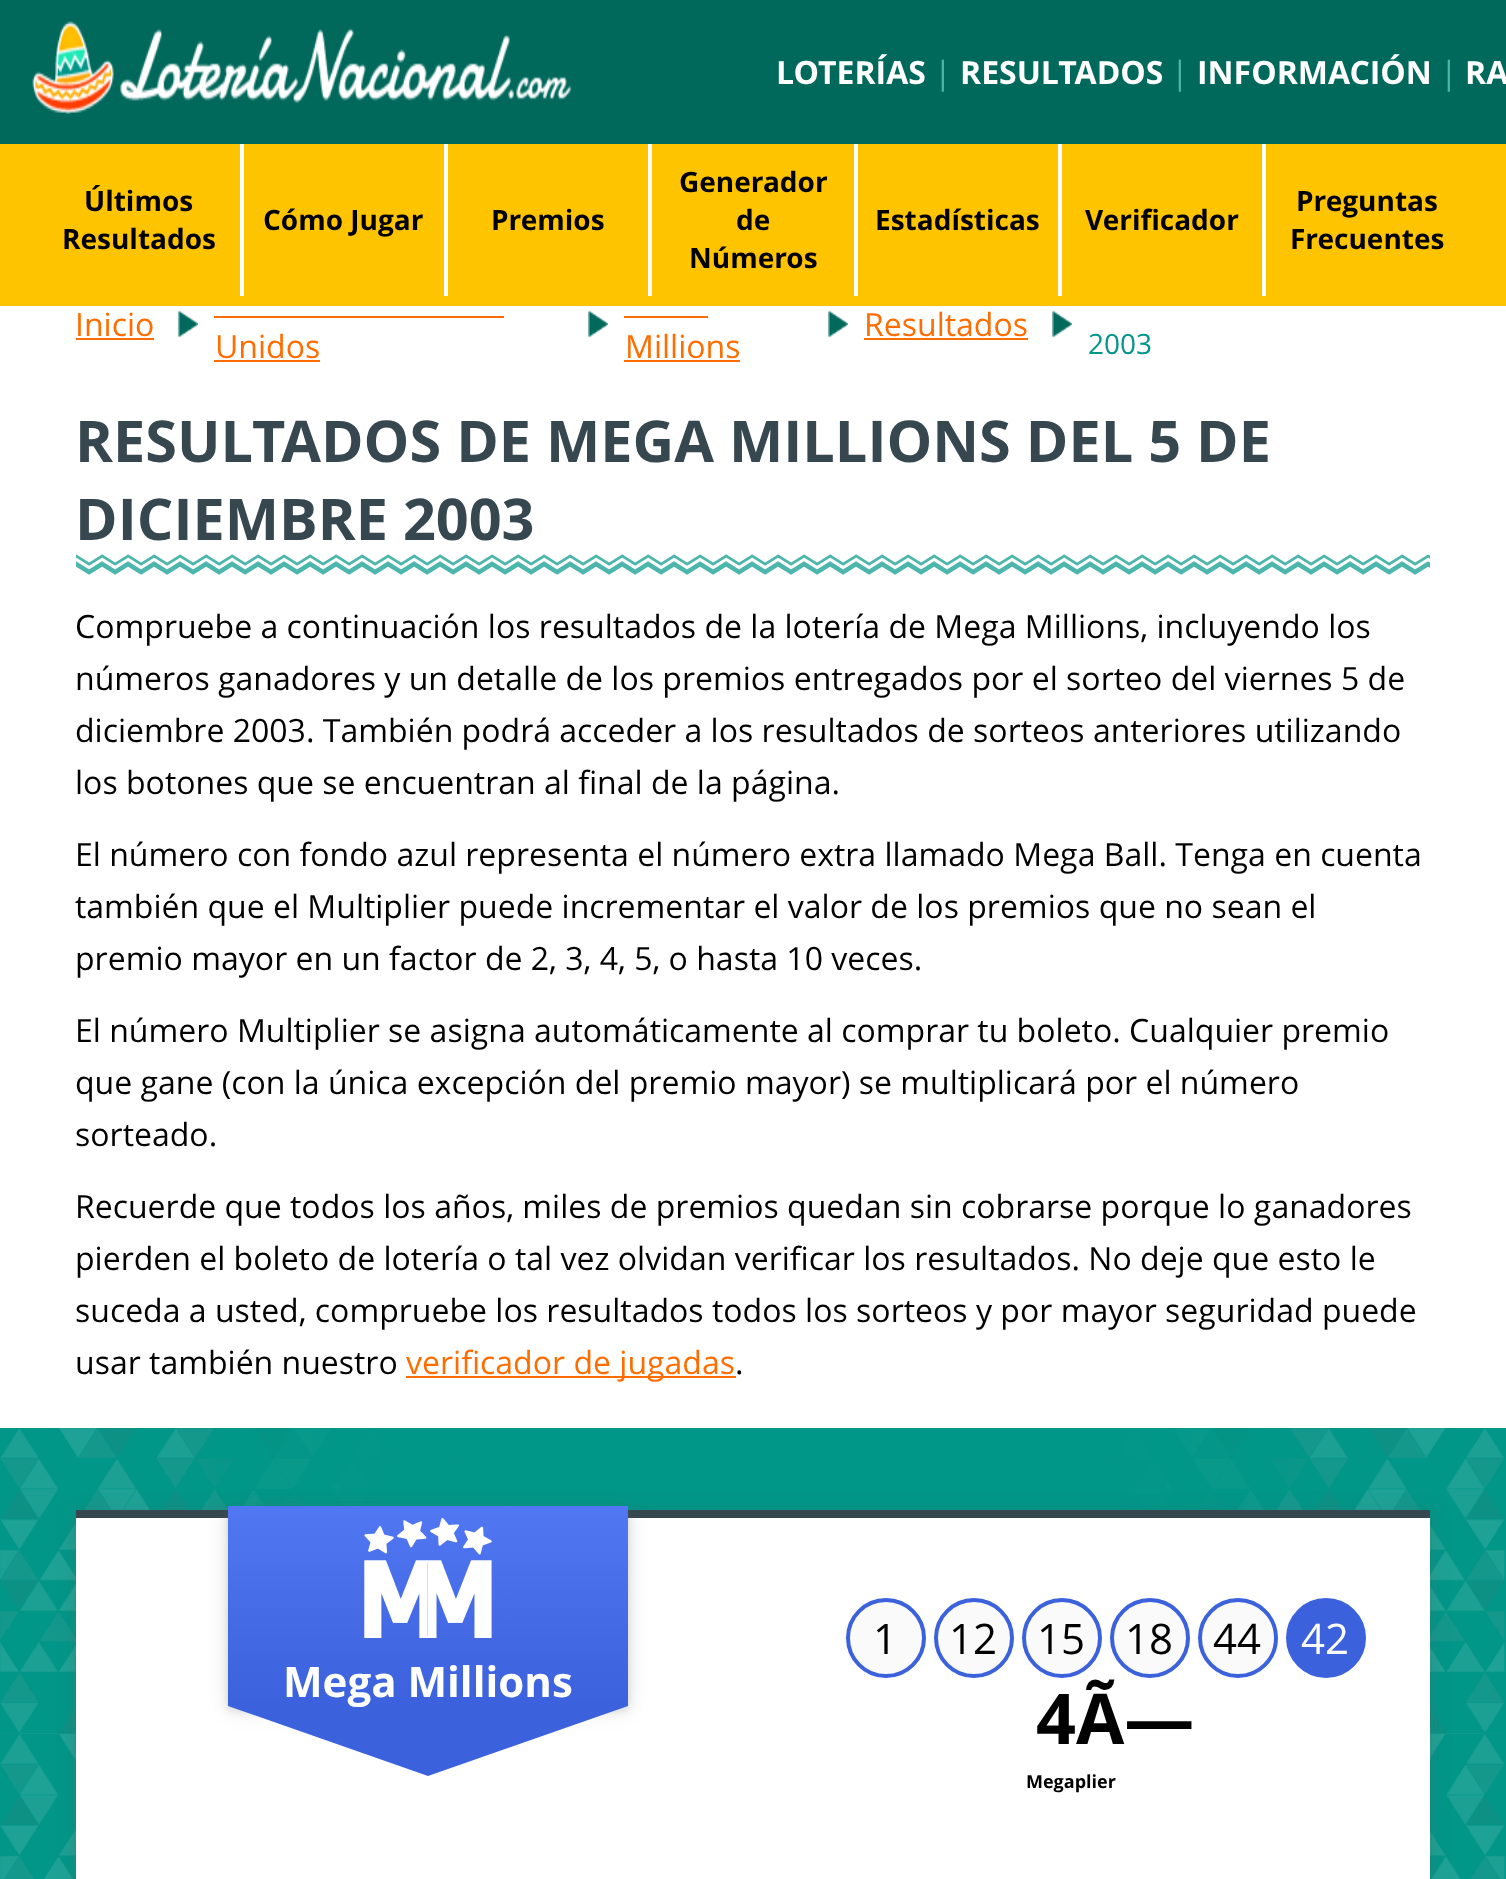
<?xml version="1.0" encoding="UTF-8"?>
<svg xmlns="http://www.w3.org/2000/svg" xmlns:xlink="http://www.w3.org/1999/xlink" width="1506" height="1879">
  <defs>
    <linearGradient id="g1" gradientUnits="userSpaceOnUse" x1="428" y1="1506" x2="428" y2="1706"><stop offset="0" stop-color="#5177f3" /><stop offset="1" stop-color="#3b61dc" /></linearGradient>
  </defs>
  <rect width="100%" height="100%" fill="#ffffff" />
  <rect y="144" width="1506" height="162" fill="#ffc400" />
  <rect x="240" y="142" width="4" height="154" fill="#ffffff" />
  <rect x="444" y="142" width="4" height="154" fill="#ffffff" />
  <rect x="648" y="142" width="4" height="154" fill="#ffffff" />
  <rect x="854" y="142" width="4" height="154" fill="#ffffff" />
  <rect x="1058" y="142" width="4" height="154" fill="#ffffff" />
  <rect x="1262" y="142" width="4" height="154" fill="#ffffff" />
  <rect width="1506" height="144" fill="#00695c" />
  <image x="32" y="21" width="539" height="93" xlink:href="image1.png" />
  <rect x="76" y="338" width="78" height="2" fill="#ff6d00" />
  <image x="828" y="310" width="20" height="28" xlink:href="image2.png" />
  <rect x="864" y="338" width="164" height="2" fill="#ff6d00" />
  <image x="178" y="310" width="20" height="28" xlink:href="image2.png" />
  <rect x="214" y="316" width="290" height="2" fill="#ff6d00" />
  <rect x="214" y="360" width="106" height="2" fill="#ff6d00" />
  <image x="588" y="310" width="20" height="28" xlink:href="image2.png" />
  <rect x="624" y="316" width="84" height="2" fill="#ff6d00" />
  <rect x="624" y="360" width="116" height="2" fill="#ff6d00" />
  <image x="1052" y="310" width="20" height="28" xlink:href="image3.png" />
  <image x="76" y="561" width="1354" height="14" xlink:href="image4.png" />
  <image x="76" y="554" width="1354" height="12" xlink:href="image5.png" />
  <rect x="406" y="1376" width="330" height="2" fill="#ff6d00" />
  <rect y="1428" width="1506" height="451" fill="#009688" />
  <image x="0" y="1428" width="1506" height="451" xlink:href="image6.png" />
  <rect x="76" y="1514" width="1354" height="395" fill="#646464" fill-opacity="0.19" filter="blur(10px)" />
  <rect x="76" y="1514" width="1354" height="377" fill="#646464" fill-opacity="0.2" filter="blur(4px)" />
  <rect x="76" y="1518" width="1354" height="361" fill="#ffffff" />
  <rect x="76" y="1510" width="1354" height="8" fill="#37474f" />
  <rect x="228" y="1510" width="400" height="200" fill="#646464" fill-opacity="0.19" filter="blur(10px)" />
  <rect x="228" y="1510" width="400" height="200" fill="#646464" fill-opacity="0.2" filter="blur(4px)" />
  <rect x="228" y="1506" width="400" height="200" fill="url(#g1)" />
  <image x="364" y="1518" width="128" height="120" xlink:href="image7.png" />
  <path d="M 228 1706 h 400 l -200 70 z" fill="#3b61dc" />
  <circle cx="886" cy="1638" r="38" fill="#fafafa" stroke="#3b61dc" stroke-width="4" />
  <circle cx="974" cy="1638" r="38" fill="#fafafa" stroke="#3b61dc" stroke-width="4" />
  <circle cx="1062" cy="1638" r="38" fill="#fafafa" stroke="#3b61dc" stroke-width="4" />
  <circle cx="1150" cy="1638" r="38" fill="#fafafa" stroke="#3b61dc" stroke-width="4" />
  <circle cx="1238" cy="1638" r="38" fill="#fafafa" stroke="#3b61dc" stroke-width="4" />
  <circle cx="1326" cy="1638" r="38" fill="#3b61dc" stroke="#3b61dc" stroke-width="4" />
  <text x="776" y="84" style="font-family: Open Sans; font-size: 32px; font-weight: bold; fill: #ffffff">LOTERÍAS</text>
  <text x="934" y="84" style="font-family: Open Sans; font-size: 32px; fill: #4db6ac">|</text>
  <text x="960" y="84" style="font-family: Open Sans; font-size: 32px; font-weight: bold; fill: #ffffff">RESULTADOS</text>
  <text x="1171" y="84" style="font-family: Open Sans; font-size: 32px; fill: #4db6ac">|</text>
  <text x="1197" y="84" style="font-family: Open Sans; font-size: 32px; font-weight: bold; fill: #ffffff">INFORMACIÓN</text>
  <text x="1440" y="84" style="font-family: Open Sans; font-size: 32px; fill: #4db6ac">|</text>
  <text x="1465" y="84" style="font-family: Open Sans; font-size: 32px; font-weight: bold; fill: #ffffff">RA</text>
  <text x="84" y="211" style="font-family: Open Sans; font-size: 28px; font-weight: bold; fill: #000000">Últimos</text>
  <text x="62" y="249" style="font-family: Open Sans; font-size: 28px; font-weight: bold; fill: #000000">Resultados</text>
  <text x="263" y="230" style="font-family: Open Sans; font-size: 28px; font-weight: bold; fill: #000000">Cómo Jugar</text>
  <text x="491" y="230" style="font-family: Open Sans; font-size: 28px; font-weight: bold; fill: #000000">Premios</text>
  <text x="679" y="192" style="font-family: Open Sans; font-size: 28px; font-weight: bold; fill: #000000">Generador</text>
  <text x="736" y="230" style="font-family: Open Sans; font-size: 28px; font-weight: bold; fill: #000000">de</text>
  <text x="689" y="268" style="font-family: Open Sans; font-size: 28px; font-weight: bold; fill: #000000">Números</text>
  <text x="875" y="230" style="font-family: Open Sans; font-size: 28px; font-weight: bold; fill: #000000">Estadísticas</text>
  <text x="1085" y="230" style="font-family: Open Sans; font-size: 28px; font-weight: bold; fill: #000000">Verificador</text>
  <text x="1296" y="211" style="font-family: Open Sans; font-size: 28px; font-weight: bold; fill: #000000">Preguntas</text>
  <text x="1290" y="249" style="font-family: Open Sans; font-size: 28px; font-weight: bold; fill: #000000">Frecuentes</text>
  <text x="75" y="336" style="font-family: Open Sans; font-size: 32px; fill: #ff6d00">Inicio</text>
  <text x="864" y="336" style="font-family: Open Sans; font-size: 32px; fill: #ff6d00">Resultados</text>
  <text x="215" y="358" style="font-family: Open Sans; font-size: 32px; fill: #ff6d00">Unidos</text>
  <text x="625" y="358" style="font-family: Open Sans; font-size: 32px; fill: #ff6d00">Millions</text>
  <text x="1088" y="354" style="font-family: Open Sans; font-size: 28px; fill: #009688">2003</text>
  <text x="75" y="462" style="font-family: Open Sans; font-size: 57.6px; font-weight: bold; fill: #37474f">RESULTADOS DE MEGA MILLIONS DEL 5 DE</text>
  <text x="75" y="540" style="font-family: Open Sans; font-size: 57.6px; font-weight: bold; fill: #37474f">DICIEMBRE 2003</text>
  <text x="75" y="638" style="font-family: Open Sans; font-size: 32px; fill: #000000">Compruebe a continuación los resultados de la lotería de Mega Millions, incluyendo los</text>
  <text x="75" y="690" style="font-family: Open Sans; font-size: 32px; fill: #000000">números ganadores y un detalle de los premios entregados por el sorteo del viernes 5 de</text>
  <text x="75" y="742" style="font-family: Open Sans; font-size: 32px; fill: #000000">diciembre 2003. También podrá acceder a los resultados de sorteos anteriores utilizando</text>
  <text x="75" y="794" style="font-family: Open Sans; font-size: 32px; fill: #000000">los botones que se encuentran al final de la página.</text>
  <text x="75" y="866" style="font-family: Open Sans; font-size: 32px; fill: #000000">El número con fondo azul representa el número extra llamado Mega Ball. Tenga en cuenta</text>
  <text x="75" y="918" style="font-family: Open Sans; font-size: 32px; fill: #000000">también que el Multiplier puede incrementar el valor de los premios que no sean el</text>
  <text x="75" y="970" style="font-family: Open Sans; font-size: 32px; fill: #000000">premio mayor en un factor de 2, 3, 4, 5, o hasta 10 veces.</text>
  <text x="75" y="1042" style="font-family: Open Sans; font-size: 32px; fill: #000000">El número Multiplier se asigna automáticamente al comprar tu boleto. Cualquier premio</text>
  <text x="75" y="1094" style="font-family: Open Sans; font-size: 32px; fill: #000000">que gane (con la única excepción del premio mayor) se multiplicará por el número</text>
  <text x="75" y="1146" style="font-family: Open Sans; font-size: 32px; fill: #000000">sorteado.</text>
  <text x="75" y="1218" style="font-family: Open Sans; font-size: 32px; fill: #000000">Recuerde que todos los años, miles de premios quedan sin cobrarse porque lo ganadores</text>
  <text x="75" y="1270" style="font-family: Open Sans; font-size: 32px; fill: #000000">pierden el boleto de lotería o tal vez olvidan verificar los resultados. No deje que esto le</text>
  <text x="75" y="1322" style="font-family: Open Sans; font-size: 32px; fill: #000000">suceda a usted, compruebe los resultados todos los sorteos y por mayor seguridad puede</text>
  <text x="75" y="1374" style="font-family: Open Sans; font-size: 32px; fill: #000000">usar también nuestro</text>
  <text x="406" y="1374" style="font-family: Open Sans; font-size: 32px; fill: #ff6d00">verificador de jugadas</text>
  <text x="735" y="1374" style="font-family: Open Sans; font-size: 32px; fill: #000000">.</text>
  <text x="283" y="1697" style="font-family: Open Sans; font-size: 42px; font-weight: bold; fill: #ffffff">Mega Millions</text>
  <text x="873" y="1654" style="font-family: Open Sans; font-size: 42px; fill: #000000">1</text>
  <text x="949" y="1654" style="font-family: Open Sans; font-size: 42px; fill: #000000">12</text>
  <text x="1037" y="1654" style="font-family: Open Sans; font-size: 42px; fill: #000000">15</text>
  <text x="1125" y="1654" style="font-family: Open Sans; font-size: 42px; fill: #000000">18</text>
  <text x="1213" y="1654" style="font-family: Open Sans; font-size: 42px; fill: #000000">44</text>
  <text x="1301" y="1654" style="font-family: Open Sans; font-size: 42px; fill: #ffffff">42</text>
  <text x="1036" y="1744" style="font-family: Open Sans; font-size: 70px; font-weight: bold; fill: #000000">4Ã—</text>
  <text x="1026" y="1788" style="font-family: Open Sans; font-size: 18px; font-weight: bold; fill: #000000">Megaplier</text>
</svg>
